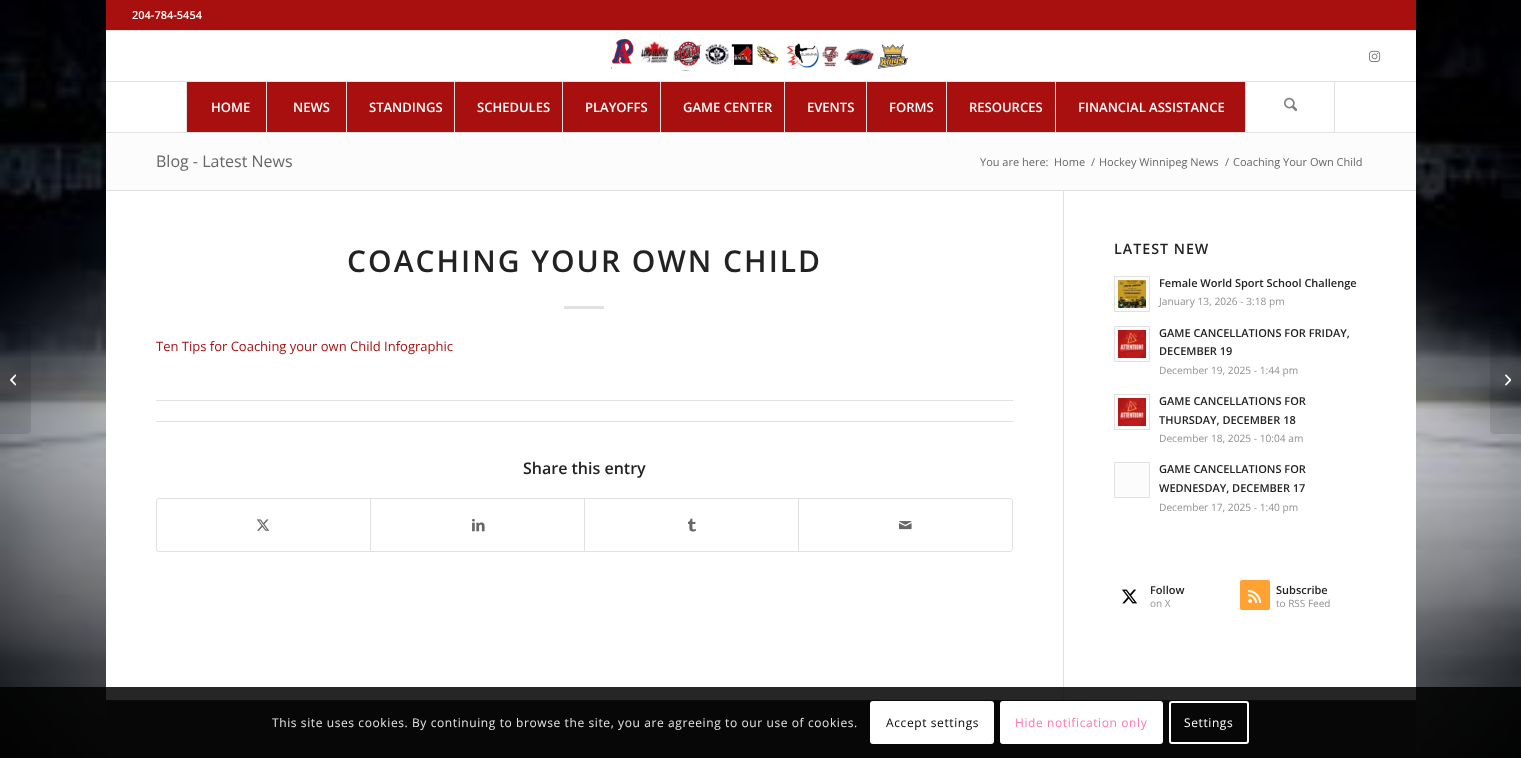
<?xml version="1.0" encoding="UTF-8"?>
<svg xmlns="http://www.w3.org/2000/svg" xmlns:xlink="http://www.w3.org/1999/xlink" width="1521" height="758">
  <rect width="100%" height="100%" fill="#ffffff" />
  <image x="0" y="0" width="1521" height="758" xlink:href="image1.png" />
  <rect x="106" width="1310" height="30" fill="#a81010" />
  <rect x="106" y="30" width="1310" height="1" fill="#e1e1e1" />
  <rect x="106" y="31" width="1310" height="669" fill="#ffffff" />
  <rect x="106" y="132" width="1310" height="1" fill="#e1e1e1" />
  <image x="611" y="39" width="297" height="33" xlink:href="image2.png" />
  <image x="1369" y="50" width="12" height="12" xlink:href="image3.png" />
  <rect x="106" y="81" width="1310" height="1" fill="#e1e1e1" />
  <rect x="187" y="82" width="79" height="50" fill="#a81010" />
  <rect x="186" y="82" width="1" height="50" fill="#e1e1e1" />
  <rect x="267" y="82" width="79" height="50" fill="#a81010" />
  <rect x="266" y="82" width="1" height="50" fill="#e1e1e1" />
  <rect x="347" y="82" width="107" height="50" fill="#a81010" />
  <rect x="346" y="82" width="1" height="50" fill="#e1e1e1" />
  <rect x="455" y="82" width="107" height="50" fill="#a81010" />
  <rect x="454" y="82" width="1" height="50" fill="#e1e1e1" />
  <rect x="563" y="82" width="97" height="50" fill="#a81010" />
  <rect x="562" y="82" width="1" height="50" fill="#e1e1e1" />
  <rect x="661" y="82" width="123" height="50" fill="#a81010" />
  <rect x="660" y="82" width="1" height="50" fill="#e1e1e1" />
  <rect x="785" y="82" width="81" height="50" fill="#a81010" />
  <rect x="784" y="82" width="1" height="50" fill="#e1e1e1" />
  <rect x="867" y="82" width="79" height="50" fill="#a81010" />
  <rect x="866" y="82" width="1" height="50" fill="#e1e1e1" />
  <rect x="947" y="82" width="108" height="50" fill="#a81010" />
  <rect x="946" y="82" width="1" height="50" fill="#e1e1e1" />
  <rect x="1056" y="82" width="189" height="50" fill="#a81010" />
  <rect x="1055" y="82" width="1" height="50" fill="#e1e1e1" />
  <rect x="1334" y="82" width="1" height="50" fill="#e1e1e1" />
  <rect x="1245" y="82" width="1" height="50" fill="#e1e1e1" />
  <image x="1284" y="97" width="13" height="15" xlink:href="image4.png" />
  <path d="M 0 324 h 27 c 2 0 4 2 4 4 v 102 c 0 2 -2 4 -4 4 h -27 z" fill="#000000" fill-opacity="0.1" />
  <image x="10" y="374" width="6" height="12" xlink:href="image5.png" />
  <rect x="106" y="133" width="1310" height="57" fill="#fcfcfc" />
  <rect x="106" y="190" width="1310" height="1" fill="#e1e1e1" />
  <rect x="564" y="306" width="40" height="3" fill="#e1e1e1" />
  <rect x="156" y="400" width="857" height="1" fill="#e1e1e1" />
  <rect x="156" y="421" width="857" height="1" fill="#e1e1e1" />
  <rect x="156.5" y="498.5" width="856" height="53" rx="2.5" fill="none" stroke="#e1e1e1" />
  <image x="256" y="519" width="14" height="12" xlink:href="image6.png" />
  <rect x="370" y="499" width="1" height="52" fill="#e1e1e1" />
  <image x="472" y="518" width="13" height="14" xlink:href="image7.png" />
  <rect x="584" y="499" width="1" height="52" fill="#e1e1e1" />
  <image x="688" y="518" width="8" height="14" xlink:href="image8.png" />
  <rect x="798" y="499" width="1" height="52" fill="#e1e1e1" />
  <image x="899" y="521" width="13" height="9" xlink:href="image9.png" />
  <rect x="1063" y="191" width="1" height="509" fill="#e1e1e1" />
  <rect x="1114.5" y="276.5" width="35" height="35" fill="#fcfcfc" stroke="#e1e1e1" />
  <image x="1118" y="280" width="28" height="28" xlink:href="image10.png" />
  <rect x="1114.5" y="326.5" width="35" height="35" fill="#fcfcfc" stroke="#e1e1e1" />
  <image x="1118" y="330" width="28" height="28" xlink:href="image11.png" />
  <rect x="1114.5" y="394.5" width="35" height="35" fill="#fcfcfc" stroke="#e1e1e1" />
  <image x="1118" y="398" width="28" height="28" xlink:href="image12.png" />
  <rect x="1114.5" y="462.5" width="35" height="35" fill="#fcfcfc" stroke="#e1e1e1" />
  <image x="1122" y="589" width="15" height="15" xlink:href="image13.png" />
  <rect x="1240" y="580" width="30" height="30" rx="2" fill="#ffa133" />
  <image x="1248" y="590" width="13" height="13" xlink:href="image14.png" />
  <rect x="106" y="701" width="1310" height="57" fill="#333333" />
  <rect x="106" y="700" width="1310" height="1" fill="#444444" />
  <path d="M 1494 324 h 27 v 110 h -27 c -2 0 -4 -2 -4 -4 v -102 c 0 -2 2 -4 4 -4 z" fill="#000000" fill-opacity="0.1" />
  <image x="1505" y="374" width="6" height="12" xlink:href="image15.png" />
  <rect y="687" width="1521" height="71" fill="#000000" fill-opacity="0.85" />
  <rect x="870" y="701" width="124" height="43" rx="3" fill="#ffffff" />
  <rect x="1001" y="702" width="161" height="41" rx="2" fill="#ffffff" stroke="#ffffff" stroke-width="2" />
  <rect x="1170" y="702" width="78" height="41" rx="2" fill="none" stroke="#ffffff" stroke-width="2" />
  <text x="132" y="19" style="font-family: Open Sans; font-size: 11px; font-weight: 600; fill: #ffffff">204-784-5454</text>
  <text x="211" y="112" style="font-family: Open Sans; font-size: 13px; font-weight: 600; fill: #ffffff">HOME</text>
  <text x="293" y="112" style="font-family: Open Sans; font-size: 13px; font-weight: 600; fill: #ffffff">NEWS</text>
  <text x="369" y="112" style="font-family: Open Sans; font-size: 13px; font-weight: 600; fill: #ffffff">STANDINGS</text>
  <text x="477" y="112" style="font-family: Open Sans; font-size: 13px; font-weight: 600; fill: #ffffff">SCHEDULES</text>
  <text x="585" y="112" style="font-family: Open Sans; font-size: 13px; font-weight: 600; fill: #ffffff">PLAYOFFS</text>
  <text x="683" y="112" style="font-family: Open Sans; font-size: 13px; font-weight: 600; fill: #ffffff">GAME CENTER</text>
  <text x="807" y="112" style="font-family: Open Sans; font-size: 13px; font-weight: 600; fill: #ffffff">EVENTS</text>
  <text x="889" y="112" style="font-family: Open Sans; font-size: 13px; font-weight: 600; fill: #ffffff">FORMS</text>
  <text x="969" y="112" style="font-family: Open Sans; font-size: 13px; font-weight: 600; fill: #ffffff">RESOURCES</text>
  <text x="1078" y="112" style="font-family: Open Sans; font-size: 13px; font-weight: 600; fill: #ffffff">FINANCIAL ASSISTANCE</text>
  <text x="156" y="167" style="font-family: Open Sans; font-size: 16px; fill: #666666">Blog - Latest News</text>
  <text x="980" y="166" style="font-family: Open Sans; font-size: 11px; fill: #666666">You are here:</text>
  <text x="1054" y="166" style="font-family: Open Sans; font-size: 11px; fill: #666666">Home</text>
  <text x="1091" y="166" style="font-family: Open Sans; font-size: 11px; fill: #666666">/</text>
  <text x="1099" y="166" style="font-family: Open Sans; font-size: 11px; fill: #666666">Hockey Winnipeg News</text>
  <text x="1225" y="166" style="font-family: Open Sans; font-size: 11px; fill: #666666">/</text>
  <text x="1233" y="166" style="font-family: Open Sans; font-size: 11px; fill: #666666">Coaching Your Own Child</text>
  <text x="347" y="272" style="font-family: Open Sans; font-size: 30px; font-weight: 600; letter-spacing: 2px; fill: #222222">COACHING YOUR OWN CHILD</text>
  <text x="156" y="351" style="font-family: Open Sans; font-size: 13px; fill: #a81010">Ten Tips for Coaching your own Child Infographic</text>
  <text x="523" y="474" style="font-family: Open Sans; font-size: 16px; font-weight: 600; fill: #222222">Share this entry</text>
  <text x="1114" y="254" style="font-family: Open Sans; font-size: 14.25px; font-weight: 600; letter-spacing: 1px; fill: #222222">LATEST NEW</text>
  <text x="1159" y="287" style="font-family: Open Sans; font-size: 11px; font-weight: 600; fill: #222222">Female World Sport School Challenge</text>
  <text x="1159" y="305" style="font-family: Open Sans; font-size: 10.2px; fill: #919191">January 13, 2026 - 3:18 pm</text>
  <text x="1159" y="337" style="font-family: Open Sans; font-size: 11px; font-weight: 600; fill: #222222">GAME CANCELLATIONS FOR FRIDAY,</text>
  <text x="1159" y="355" style="font-family: Open Sans; font-size: 11px; font-weight: 600; fill: #222222">DECEMBER 19</text>
  <text x="1159" y="374" style="font-family: Open Sans; font-size: 10.2px; fill: #919191">December 19, 2025 - 1:44 pm</text>
  <text x="1159" y="405" style="font-family: Open Sans; font-size: 11px; font-weight: 600; fill: #222222">GAME CANCELLATIONS FOR</text>
  <text x="1159" y="424" style="font-family: Open Sans; font-size: 11px; font-weight: 600; fill: #222222">THURSDAY, DECEMBER 18</text>
  <text x="1159" y="442" style="font-family: Open Sans; font-size: 10.2px; fill: #919191">December 18, 2025 - 10:04 am</text>
  <text x="1159" y="473" style="font-family: Open Sans; font-size: 11px; font-weight: 600; fill: #222222">GAME CANCELLATIONS FOR</text>
  <text x="1159" y="492" style="font-family: Open Sans; font-size: 11px; font-weight: 600; fill: #222222">WEDNESDAY, DECEMBER 17</text>
  <text x="1159" y="511" style="font-family: Open Sans; font-size: 10.2px; fill: #919191">December 17, 2025 - 1:40 pm</text>
  <text x="1150" y="594" style="font-family: Open Sans; font-size: 11px; font-weight: 600; fill: #222222">Follow</text>
  <text x="1150" y="607" style="font-family: Open Sans; font-size: 10px; fill: #919191">on X</text>
  <text x="1276" y="594" style="font-family: Open Sans; font-size: 11px; font-weight: 600; fill: #222222">Subscribe</text>
  <text x="1276" y="607" style="font-family: Open Sans; font-size: 10px; fill: #919191">to RSS Feed</text>
  <text x="272" y="727" style="font-family: Open Sans; font-size: 12px; letter-spacing: 0.6px; fill: #e6e6e6">This site uses cookies. By continuing to browse the site, you are agreeing to our use of cookies.</text>
  <text x="886" y="727" style="font-family: Open Sans; font-size: 12px; letter-spacing: 0.6px; fill: #000000">Accept settings</text>
  <text x="1015" y="727" style="font-family: Open Sans; font-size: 12px; letter-spacing: 0.6px; fill: #ff75b5">Hide notification only</text>
  <text x="1184" y="727" style="font-family: Open Sans; font-size: 12px; letter-spacing: 0.6px; fill: #ffffff">Settings</text>
</svg>
